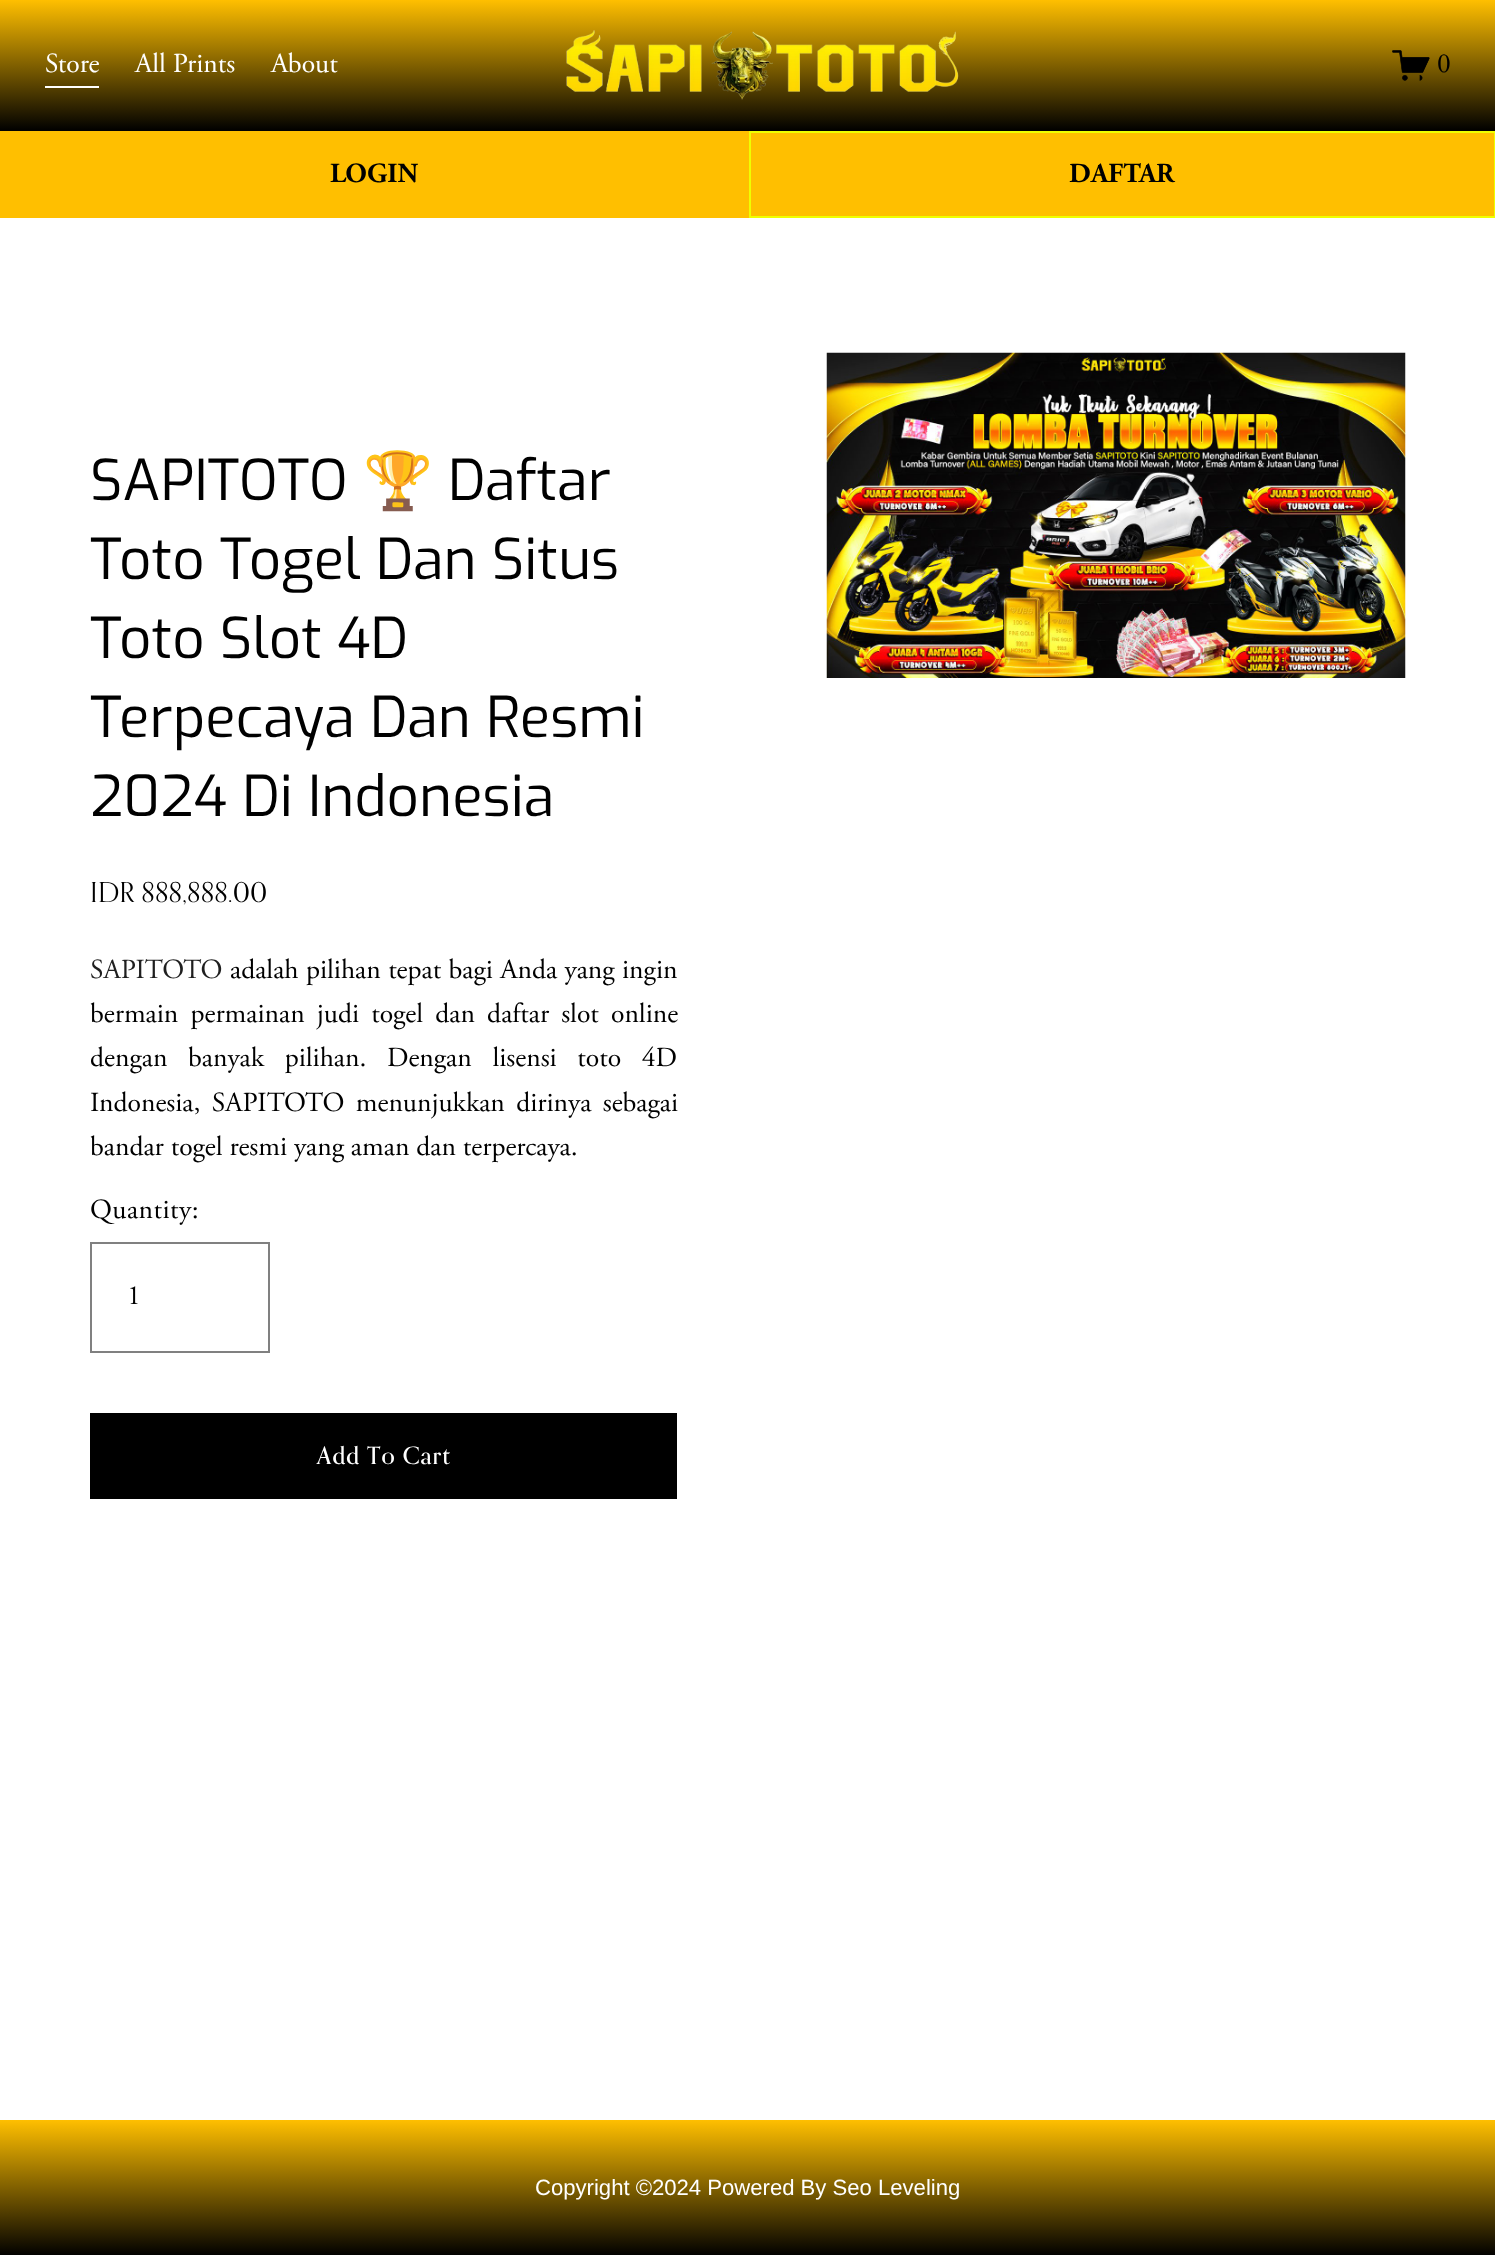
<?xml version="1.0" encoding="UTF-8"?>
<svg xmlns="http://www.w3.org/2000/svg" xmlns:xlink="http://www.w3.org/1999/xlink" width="1495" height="2255">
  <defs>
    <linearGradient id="g1" gradientUnits="userSpaceOnUse" x1="748" y1="0" x2="748" y2="131"><stop offset="0" stop-color="#ffbf00" /><stop offset="1" stop-color="#000000" /></linearGradient>
    <linearGradient id="g2" gradientUnits="userSpaceOnUse" x1="748" y1="2120" x2="748" y2="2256"><stop offset="0" stop-color="#ffbf00" /><stop offset="1" stop-color="#000000" /></linearGradient>
  </defs>
  <rect width="100%" height="100%" fill="#ffffff" />
  <rect width="1495" height="131" fill="url(#g1)" />
  <rect x="45" y="86" width="54" height="2" fill="#ffffff" />
  <image x="566" y="30" width="393" height="70" xlink:href="image1.png" />
  <image x="1392" y="50" width="38" height="31" xlink:href="image2.png" />
  <rect y="131" width="749" height="87" fill="#ffbf00" />
  <rect x="750" y="132" width="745" height="85" fill="#ffbf00" stroke="#efff00" stroke-width="2" />
  <rect x="91" y="1243" width="178" height="109" fill="none" stroke="#808080" stroke-width="2" />
  <rect x="90" y="1413" width="587" height="86" fill="#000000" />
  <image x="826" y="352" width="580" height="326" xlink:href="image3.png" />
  <rect y="2120" width="1495" height="135" fill="url(#g2)" />
  <text x="45" y="72" style="font-family: Adobe Garamond; font-size: 27.6px; fill: #ffffff">Store</text>
  <text x="135" y="72" style="font-family: Adobe Garamond; font-size: 27.6px; fill: #ffffff">All Prints</text>
  <text x="271" y="72" style="font-family: Adobe Garamond; font-size: 27.6px; fill: #ffffff">About</text>
  <text x="1437" y="72" style="font-family: Adobe Garamond; font-size: 27.6px; fill: #000000">0</text>
  <text x="330" y="182" style="font-family: Adobe Garamond; font-size: 27.6px; font-weight: bold; fill: #000000">LOGIN</text>
  <text x="1069" y="182" style="font-family: Adobe Garamond; font-size: 27.6px; font-weight: bold; fill: #000000">DAFTAR</text>
  <text x="90" y="500" style="font-family: Exo; font-size: 56.25px; fill: #000000">SAPITOTO</text>
  <text x="363" y="500" style="font-family: Noto Color Emoji; font-size: 56.25px; fill: #000000">🏆️</text>
  <text x="448" y="500" style="font-family: Exo; font-size: 56.25px; fill: #000000">Daftar</text>
  <text x="90" y="579" style="font-family: Exo; font-size: 56.25px; fill: #000000">Toto Togel Dan Situs</text>
  <text x="90" y="658" style="font-family: Exo; font-size: 56.25px; fill: #000000">Toto Slot 4D</text>
  <text x="90" y="737" style="font-family: Exo; font-size: 56.25px; fill: #000000">Terpecaya Dan Resmi</text>
  <text x="90" y="816" style="font-family: Exo; font-size: 56.25px; fill: #000000">2024 Di Indonesia</text>
  <text x="90" y="902" style="font-family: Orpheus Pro; font-size: 27.6px; fill: #000000">IDR 888,888.00</text>
  <text x="90" y="978" style="font-family: Adobe Garamond; font-size: 27.6px; fill: #1f1f1f">SAPITOTO</text>
  <text x="230" y="978" word-spacing="0.5" style="font-family: Adobe Garamond; font-size: 27.6px; fill: #000000">adalah pilihan tepat bagi Anda yang ingin</text>
  <text x="90" y="1022" word-spacing="5.25" style="font-family: Adobe Garamond; font-size: 27.6px; fill: #000000">bermain permainan judi togel dan daftar slot online</text>
  <text x="90" y="1066" word-spacing="13.75" style="font-family: Adobe Garamond; font-size: 27.6px; fill: #000000">dengan banyak pilihan. Dengan lisensi toto 4D</text>
  <text x="90" y="1111" word-spacing="4.5" style="font-family: Adobe Garamond; font-size: 27.6px; fill: #000000">Indonesia, SAPITOTO menunjukkan dirinya sebagai</text>
  <text x="90" y="1155" style="font-family: Adobe Garamond; font-size: 27.6px; fill: #000000">bandar togel resmi yang aman dan terpercaya.</text>
  <text x="90" y="1218" style="font-family: Adobe Garamond; font-size: 27.6px; letter-spacing: 0.5px; fill: #000000">Quantity:</text>
  <text x="127" y="1304" style="font-family: Adobe Garamond; font-size: 27.6px; fill: #000000">1</text>
  <text x="317" y="1464" style="font-family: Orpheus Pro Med; font-size: 24px; font-weight: 500; letter-spacing: 1px; fill: #ffffff">Add To Cart</text>
  <text x="535" y="2195" style="font-family: Liberation Sans; font-size: 22.1px; fill: #ffffff">Copyright ©2024 Powered By Seo Leveling</text>
</svg>
